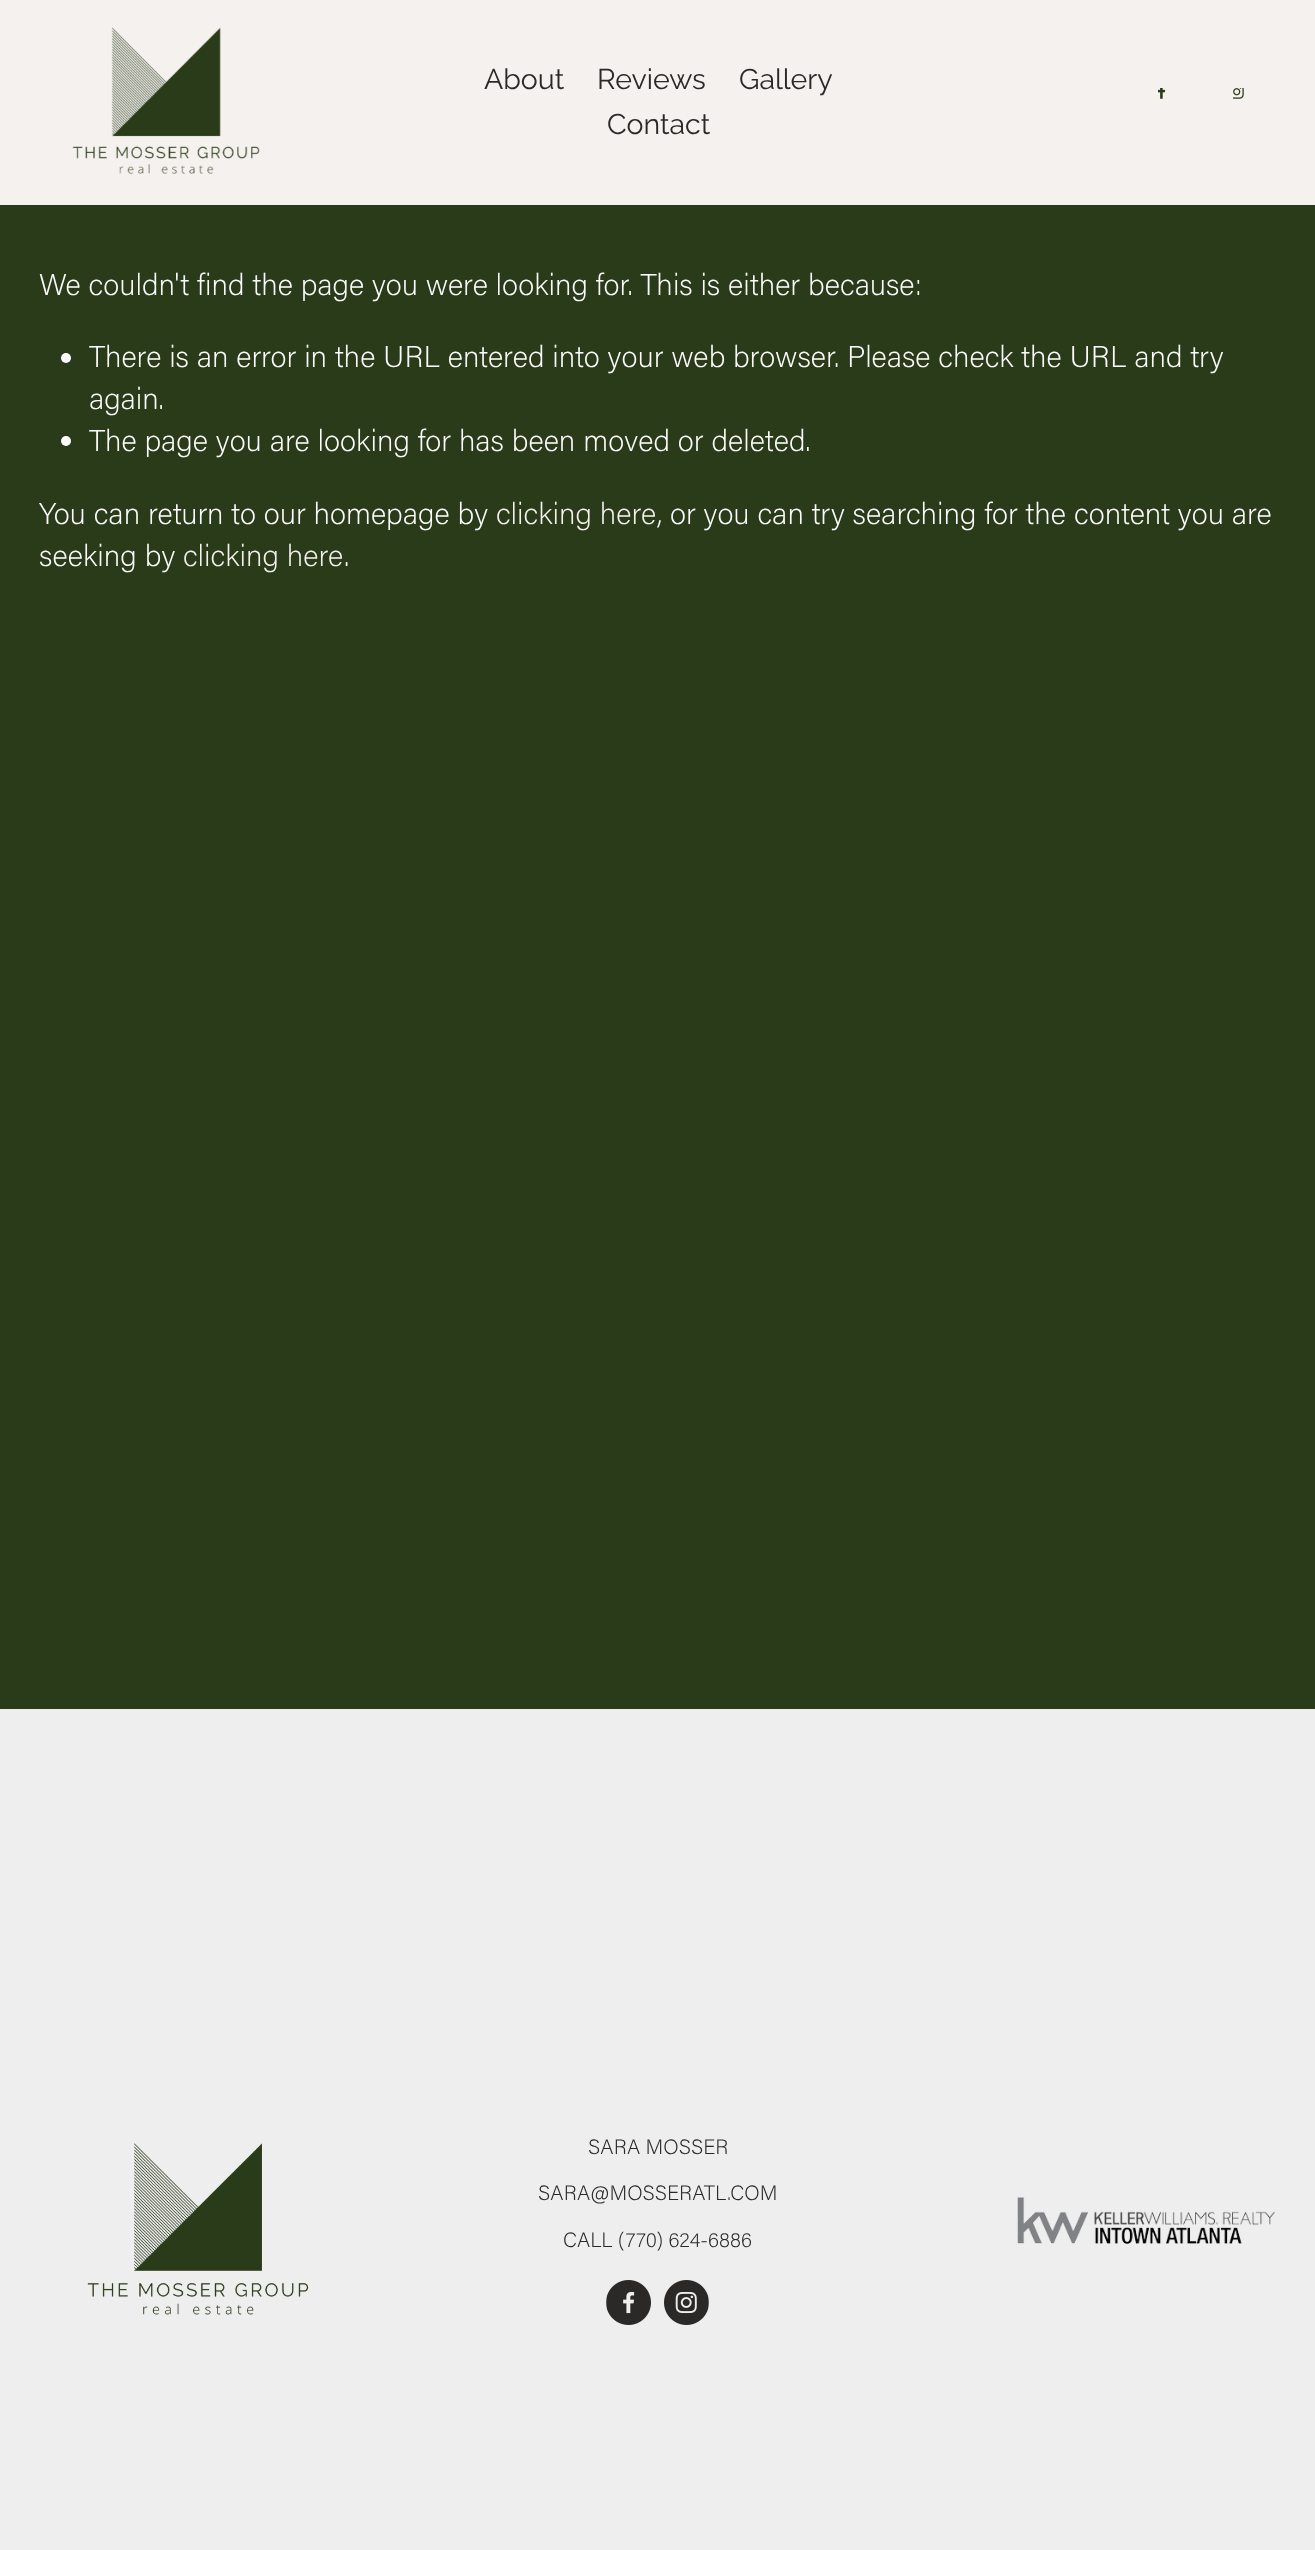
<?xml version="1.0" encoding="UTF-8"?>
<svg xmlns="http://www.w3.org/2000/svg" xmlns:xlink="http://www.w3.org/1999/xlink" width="1315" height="2550">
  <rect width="100%" height="100%" fill="#2a3b19" />
  <rect width="1315" height="205" fill="#f4f1ee" />
  <image x="72" y="27" width="188" height="147" xlink:href="image1.png" />
  <image x="1158" y="88" width="8" height="11" xlink:href="image2.png" />
  <image x="1233" y="88" width="11" height="11" xlink:href="image3.png" />
  <circle cx="66" cy="358" r="5" fill="#ffffff" />
  <circle cx="66" cy="441" r="5" fill="#ffffff" />
  <rect y="1709" width="1315" height="841" fill="#eeeeee" />
  <image x="87" y="2143" width="222" height="172" xlink:href="image4.png" />
  <image x="1017" y="2197" width="258" height="47" xlink:href="image5.png" />
  <image x="606" y="2280" width="45" height="45" xlink:href="image6.png" />
  <image x="664" y="2280" width="45" height="45" xlink:href="image7.png" />
  <text x="484" y="89" style="font-family: Raleway; font-size: 28.5px; fill: #2b2828">About</text>
  <text x="597" y="89" style="font-family: Raleway; font-size: 28.5px; fill: #2b2828">Reviews</text>
  <text x="739" y="89" style="font-family: Raleway; font-size: 28.5px; fill: #2b2828">Gallery</text>
  <text x="607" y="134" style="font-family: Raleway; font-size: 28.5px; fill: #2b2828">Contact</text>
  <text x="39" y="295" style="font-family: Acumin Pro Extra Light; font-size: 30.1px; font-weight: 200; fill: #ffffff">We couldn't find the page you were looking for. This is either because:</text>
  <text x="89" y="367" style="font-family: Acumin Pro Extra Light; font-size: 30.1px; font-weight: 200; fill: #ffffff">There is an error in the URL entered into your web browser. Please check the URL and try</text>
  <text x="89" y="409" style="font-family: Acumin Pro Extra Light; font-size: 30.1px; font-weight: 200; fill: #ffffff">again.</text>
  <text x="89" y="451" style="font-family: Acumin Pro Extra Light; font-size: 30.1px; font-weight: 200; fill: #ffffff">The page you are looking for has been moved or deleted.</text>
  <text x="39" y="524" style="font-family: Acumin Pro Extra Light; font-size: 30.1px; font-weight: 200; fill: #ffffff">You can return to our homepage by</text>
  <text x="496" y="524" style="font-family: Acumin Pro Extra Light; font-size: 30.1px; font-weight: 200; fill: #f4f1ee">clicking here</text>
  <text x="657" y="524" style="font-family: Acumin Pro Extra Light; font-size: 30.1px; font-weight: 200; fill: #ffffff">, or you can try searching for the</text>
  <text x="1074" y="524" style="font-family: Acumin Pro Extra Light; font-size: 30.1px; font-weight: 200; fill: #ffffff">content you are</text>
  <text x="39" y="566" style="font-family: Acumin Pro Extra Light; font-size: 30.1px; font-weight: 200; fill: #ffffff">seeking by</text>
  <text x="183" y="566" style="font-family: Acumin Pro Extra Light; font-size: 30.1px; font-weight: 200; fill: #f4f1ee">clicking here</text>
  <text x="344" y="566" style="font-family: Acumin Pro Extra Light; font-size: 30.1px; font-weight: 200; fill: #ffffff">.</text>
  <text x="588" y="2154" style="font-family: Acumin Pro Extra Light; font-size: 20.7px; font-weight: 200; fill: #2b2828">SARA MOSSER</text>
  <text x="538" y="2200" style="font-family: Acumin Pro Extra Light; font-size: 20.7px; font-weight: 200; fill: #2b2828">SARA@MOSSERATL.COM</text>
  <text x="563" y="2247" style="font-family: Acumin Pro Extra Light; font-size: 20.7px; font-weight: 200; fill: #2b2828">CALL (770) 624-6886</text>
</svg>
